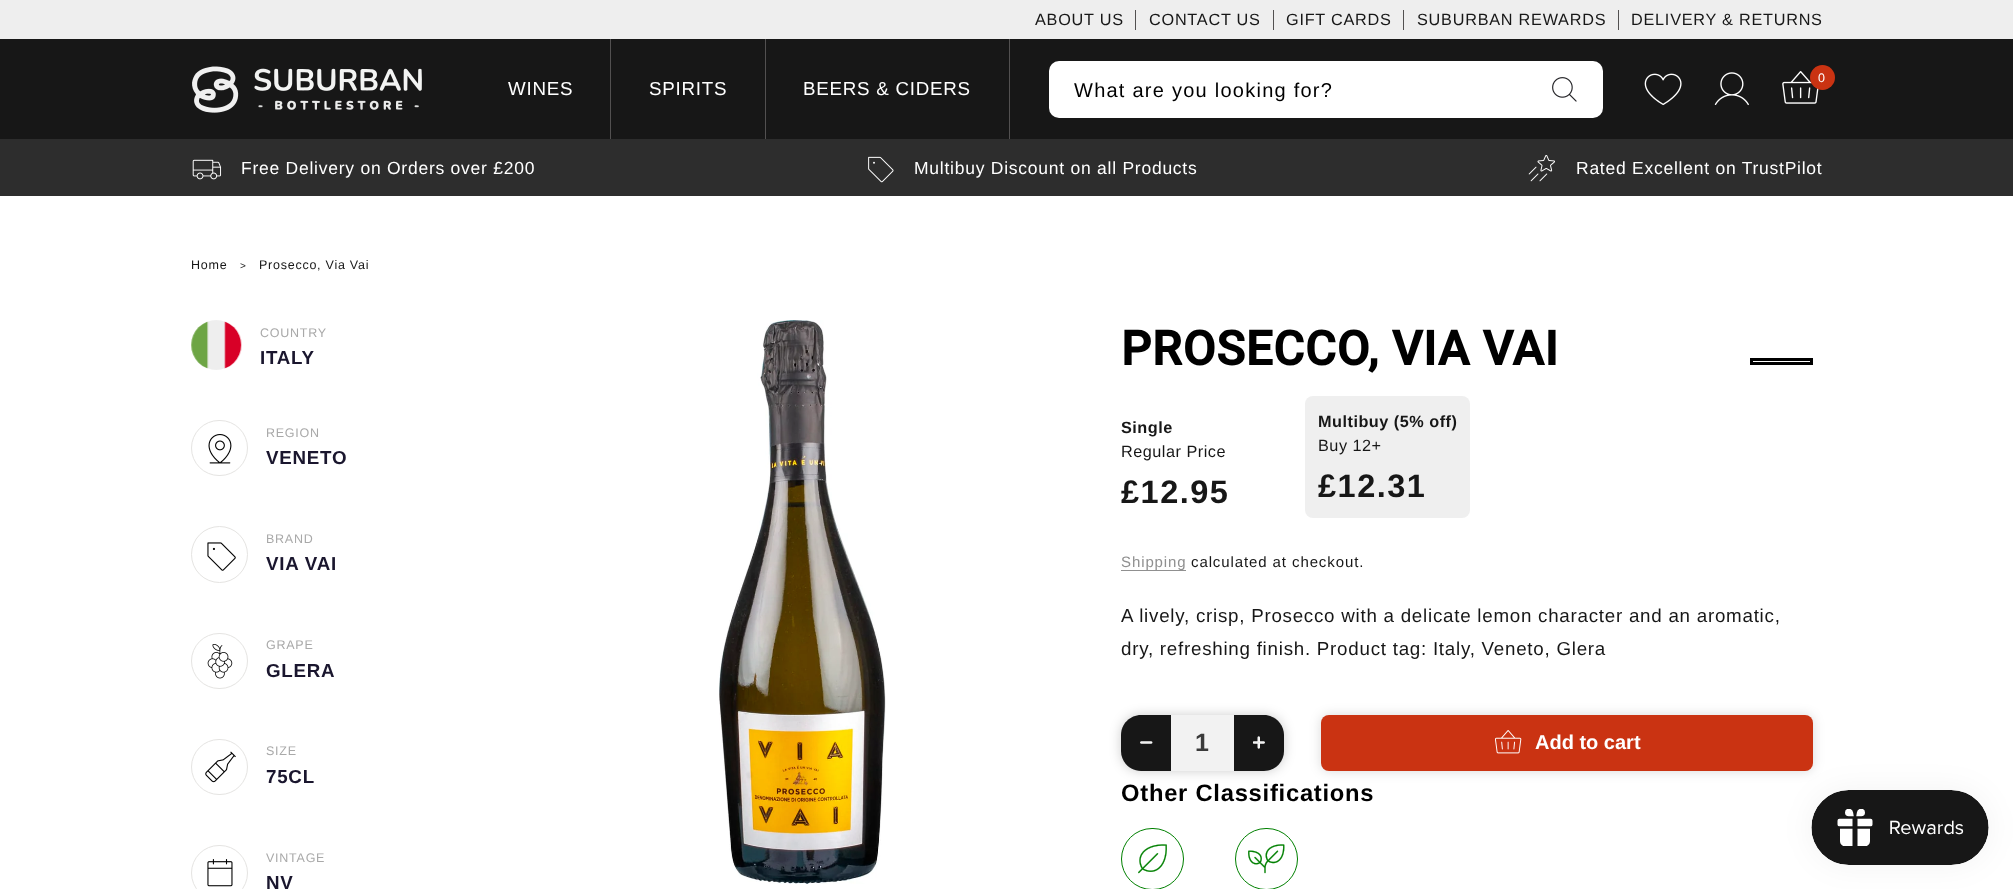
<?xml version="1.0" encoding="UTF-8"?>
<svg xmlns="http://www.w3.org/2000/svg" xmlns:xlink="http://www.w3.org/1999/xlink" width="2013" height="889">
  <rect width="100%" height="100%" fill="#ffffff" />
  <rect y="39" width="2013" height="100" fill="#171717" />
  <rect width="2013" height="39" fill="#eeeeee" />
  <rect x="1135" y="10" width="1" height="20" fill="#525050" />
  <rect x="1273" y="10" width="1" height="20" fill="#525050" />
  <rect x="1403" y="10" width="1" height="20" fill="#525050" />
  <rect x="1618" y="10" width="1" height="20" fill="#525050" />
  <image x="192" y="66" width="230" height="47" xlink:href="image1.png" />
  <rect x="610" y="39" width="1" height="100" fill="#525050" />
  <rect x="765" y="39" width="1" height="100" fill="#525050" />
  <rect x="1009" y="39" width="1" height="100" fill="#525050" />
  <image x="1644" y="73" width="38" height="33" xlink:href="image2.png" />
  <image x="1714" y="72" width="35" height="34" xlink:href="image3.png" />
  <image x="1782" y="71" width="37" height="33" xlink:href="image4.png" />
  <circle cx="1822.5" cy="77.5" r="12.5" fill="#ca3312" />
  <rect x="1049" y="61" width="554" height="57" rx="10" fill="#ffffff" />
  <image x="1552" y="77" width="25" height="25" xlink:href="image5.png" />
  <rect y="139" width="2013" height="57" fill="#2d2d2d" />
  <image x="192" y="159" width="30" height="21" xlink:href="image6.png" />
  <image x="868" y="156" width="26" height="27" xlink:href="image7.png" />
  <image x="1528" y="155" width="27" height="27" xlink:href="image8.png" />
  <image x="191" y="320" width="51" height="50" xlink:href="image9.png" />
  <rect x="191.5" y="420.5" width="56" height="55" rx="27.5" fill="none" stroke="#e5e4e2" />
  <image x="208" y="434" width="24" height="30" xlink:href="image10.png" />
  <circle cx="219.5" cy="554.5" r="28" fill="none" stroke="#e5e4e2" />
  <image x="207" y="542" width="29" height="29" xlink:href="image11.png" />
  <rect x="191.5" y="633.5" width="56" height="55" rx="27.5" fill="none" stroke="#e5e4e2" />
  <image x="207" y="644" width="26" height="35" xlink:href="image12.png" />
  <rect x="191.5" y="739.5" width="56" height="55" rx="27.5" fill="none" stroke="#e5e4e2" />
  <image x="205" y="751" width="31" height="32" xlink:href="image13.png" />
  <rect x="191.5" y="845.5" width="56" height="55" rx="27.5" fill="none" stroke="#e5e4e2" />
  <image x="207" y="859" width="26" height="28" xlink:href="image14.png" />
  <image x="719" y="320" width="167" height="564" xlink:href="image15.png" />
  <rect x="1751.5" y="359.5" width="60" height="4" fill="none" stroke="#000000" stroke-width="3" />
  <rect x="1305" y="396" width="165" height="122" rx="8" fill="#efefef" />
  <rect x="1121" y="570" width="65" height="1" fill="#909090" />
  <rect x="1121" y="715" width="163" height="56" rx="20" fill="#000000" fill-opacity="0.2" filter="blur(6px)" />
  <path d="M 1141 715 h 30 v 56 h -30 c -11 0 -20 -9 -20 -20 v -16 c 0 -11 9 -20 20 -20 z" fill="#171717" />
  <image x="1140" y="741" width="13" height="3" xlink:href="image16.png" />
  <rect x="1171" y="715" width="63" height="56" fill="#f2f2f2" />
  <path d="M 1234 715 h 30 c 11 0 20 9 20 20 v 16 c 0 11 -9 20 -20 20 h -30 z" fill="#171717" />
  <image x="1253" y="736" width="12" height="13" xlink:href="image17.png" />
  <rect x="1321" y="715" width="492" height="56" rx="8" fill="#000000" fill-opacity="0.15" filter="blur(6px)" />
  <rect x="1321" y="715" width="492" height="56" rx="8" fill="#ca3312" />
  <image x="1495" y="730" width="27" height="24" xlink:href="image18.png" />
  <rect x="1121.5" y="828.5" width="62" height="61" rx="30.5" fill="none" stroke="#008000" />
  <image x="1138" y="844" width="29" height="30" xlink:href="image19.png" />
  <rect x="1235.5" y="828.5" width="62" height="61" rx="30.5" fill="none" stroke="#008000" />
  <image x="1248" y="844" width="37" height="30" xlink:href="image20.png" />
  <rect x="1811" y="790" width="178" height="75" rx="37.5" fill="#000000" fill-opacity="0.05" filter="blur(15.5px)" />
  <image x="1811" y="790" width="178" height="75" xlink:href="image21.png" />
  <text x="1035" y="25" style="font-family: Liberation Sans; font-size: 16.25px; letter-spacing: 0.75px; fill: #171717">ABOUT US</text>
  <text x="1149" y="25" style="font-family: Liberation Sans; font-size: 16.25px; letter-spacing: 0.75px; fill: #171717">CONTACT US</text>
  <text x="1286" y="25" style="font-family: Liberation Sans; font-size: 16.25px; letter-spacing: 0.75px; fill: #171717">GIFT CARDS</text>
  <text x="1417" y="25" style="font-family: Liberation Sans; font-size: 16.25px; letter-spacing: 0.75px; fill: #171717">SUBURBAN REWARDS</text>
  <text x="1631" y="25" style="font-family: Liberation Sans; font-size: 16.25px; letter-spacing: 0.75px; fill: #171717">DELIVERY &amp; RETURNS</text>
  <text x="508" y="95" style="font-family: Liberation Sans; font-size: 18.75px; letter-spacing: 0.75px; fill: #ffffff">WINES</text>
  <text x="649" y="95" style="font-family: Liberation Sans; font-size: 18.75px; letter-spacing: 0.75px; fill: #ffffff">SPIRITS</text>
  <text x="803" y="95" style="font-family: Liberation Sans; font-size: 18.75px; letter-spacing: 0.75px; fill: #ffffff">BEERS &amp; CIDERS</text>
  <text x="1818" y="82" style="font-family: Liberation Sans; font-size: 12.5px; letter-spacing: 0.75px; fill: #ffffff">0</text>
  <text x="1074" y="97" style="font-family: Liberation Sans; font-size: 20px; letter-spacing: 1.25px; fill: #000000">What are you looking for?</text>
  <text x="241" y="174" style="font-family: Liberation Sans; font-size: 17.5px; letter-spacing: 0.75px; fill: #ffffff">Free Delivery on Orders over £200</text>
  <text x="914" y="174" style="font-family: Liberation Sans; font-size: 17.5px; letter-spacing: 0.75px; fill: #ffffff">Multibuy Discount on all Products</text>
  <text x="1576" y="174" style="font-family: Liberation Sans; font-size: 17.5px; letter-spacing: 0.75px; fill: #ffffff">Rated Excellent on TrustPilot</text>
  <text x="191" y="269" style="font-family: Liberation Sans; font-size: 12.5px; letter-spacing: 0.75px; fill: #171717">Home</text>
  <text x="240" y="269" style="font-family: Liberation Sans; font-size: 10px; letter-spacing: 0.75px; fill: #171717">&gt;</text>
  <text x="259" y="269" style="font-family: Liberation Sans; font-size: 12.5px; letter-spacing: 0.75px; fill: #171717">Prosecco, Via Vai</text>
  <text x="260" y="337" style="font-family: Liberation Sans; font-size: 12.5px; letter-spacing: 0.75px; fill: #a9a9a9">COUNTRY</text>
  <text x="260" y="364" style="font-family: Liberation Sans; font-size: 18.75px; font-weight: bold; letter-spacing: 0.75px; fill: #1a162e">ITALY</text>
  <text x="266" y="437" style="font-family: Liberation Sans; font-size: 12.5px; letter-spacing: 0.75px; fill: #a9a9a9">REGION</text>
  <text x="266" y="464" style="font-family: Liberation Sans; font-size: 18.75px; font-weight: bold; letter-spacing: 0.75px; fill: #1a162e">VENETO</text>
  <text x="266" y="543" style="font-family: Liberation Sans; font-size: 12.5px; letter-spacing: 0.75px; fill: #a9a9a9">BRAND</text>
  <text x="266" y="570" style="font-family: Liberation Sans; font-size: 18.75px; font-weight: bold; letter-spacing: 0.75px; fill: #1a162e">VIA VAI</text>
  <text x="266" y="649" style="font-family: Liberation Sans; font-size: 12.5px; letter-spacing: 0.75px; fill: #a9a9a9">GRAPE</text>
  <text x="266" y="677" style="font-family: Liberation Sans; font-size: 18.75px; font-weight: bold; letter-spacing: 0.75px; fill: #1a162e">GLERA</text>
  <text x="266" y="755" style="font-family: Liberation Sans; font-size: 12.5px; letter-spacing: 0.75px; fill: #a9a9a9">SIZE</text>
  <text x="266" y="783" style="font-family: Liberation Sans; font-size: 18.75px; font-weight: bold; letter-spacing: 0.75px; fill: #1a162e">75CL</text>
  <text x="266" y="862" style="font-family: Liberation Sans; font-size: 12.5px; letter-spacing: 0.75px; fill: #a9a9a9">VINTAGE</text>
  <text x="266" y="889" style="font-family: Liberation Sans; font-size: 18.75px; font-weight: bold; letter-spacing: 0.75px; fill: #1a162e">NV</text>
  <text x="1121" y="365" style="font-family: Roboto; font-size: 47.5px; font-weight: bold; letter-spacing: 0.75px; fill: #000000">PROSECCO, VIA VAI</text>
  <text x="1121" y="433" style="font-family: Liberation Sans; font-size: 16.25px; font-weight: bold; letter-spacing: 0.5px; fill: #171717">Single</text>
  <text x="1121" y="457" style="font-family: Liberation Sans; font-size: 16.25px; letter-spacing: 0.5px; fill: #171717">Regular Price</text>
  <text x="1121" y="503" style="font-family: Liberation Sans; font-size: 32.5px; font-weight: bold; letter-spacing: 1.5px; fill: #171717">£12.95</text>
  <text x="1318" y="427" style="font-family: Liberation Sans; font-size: 16.25px; font-weight: bold; letter-spacing: 0.5px; fill: #171717">Multibuy (5% off)</text>
  <text x="1318" y="451" style="font-family: Liberation Sans; font-size: 16.25px; letter-spacing: 0.5px; fill: #171717">Buy 12+</text>
  <text x="1318" y="497" style="font-family: Liberation Sans; font-size: 32.5px; font-weight: bold; letter-spacing: 1.5px; fill: #171717">£12.31</text>
  <text x="1121" y="567" style="font-family: Liberation Sans; font-size: 15px; letter-spacing: 0.9px; fill: #909090">Shipping</text>
  <text x="1191" y="567" style="font-family: Liberation Sans; font-size: 15px; letter-spacing: 0.9px; fill: #171717">calculated at checkout.</text>
  <text x="1121" y="622" style="font-family: Liberation Sans; font-size: 18.75px; letter-spacing: 0.75px; fill: #171717">A lively, crisp, Prosecco with a delicate lemon character and an aromatic,</text>
  <text x="1121" y="655" style="font-family: Liberation Sans; font-size: 18.75px; letter-spacing: 0.75px; fill: #171717">dry, refreshing finish. Product tag: Italy, Veneto, Glera</text>
  <text x="1195" y="751" style="font-family: Liberation Sans; font-size: 25px; font-weight: bold; fill: #3a3a3a">1</text>
  <text x="1535" y="749" style="font-family: Liberation Sans; font-size: 20px; font-weight: bold; fill: #ffffff">Add to cart</text>
  <text x="1121" y="801" style="font-family: Liberation Sans; font-size: 23.75px; font-weight: bold; letter-spacing: 0.75px; fill: #000000">Other Classifications</text>
</svg>
